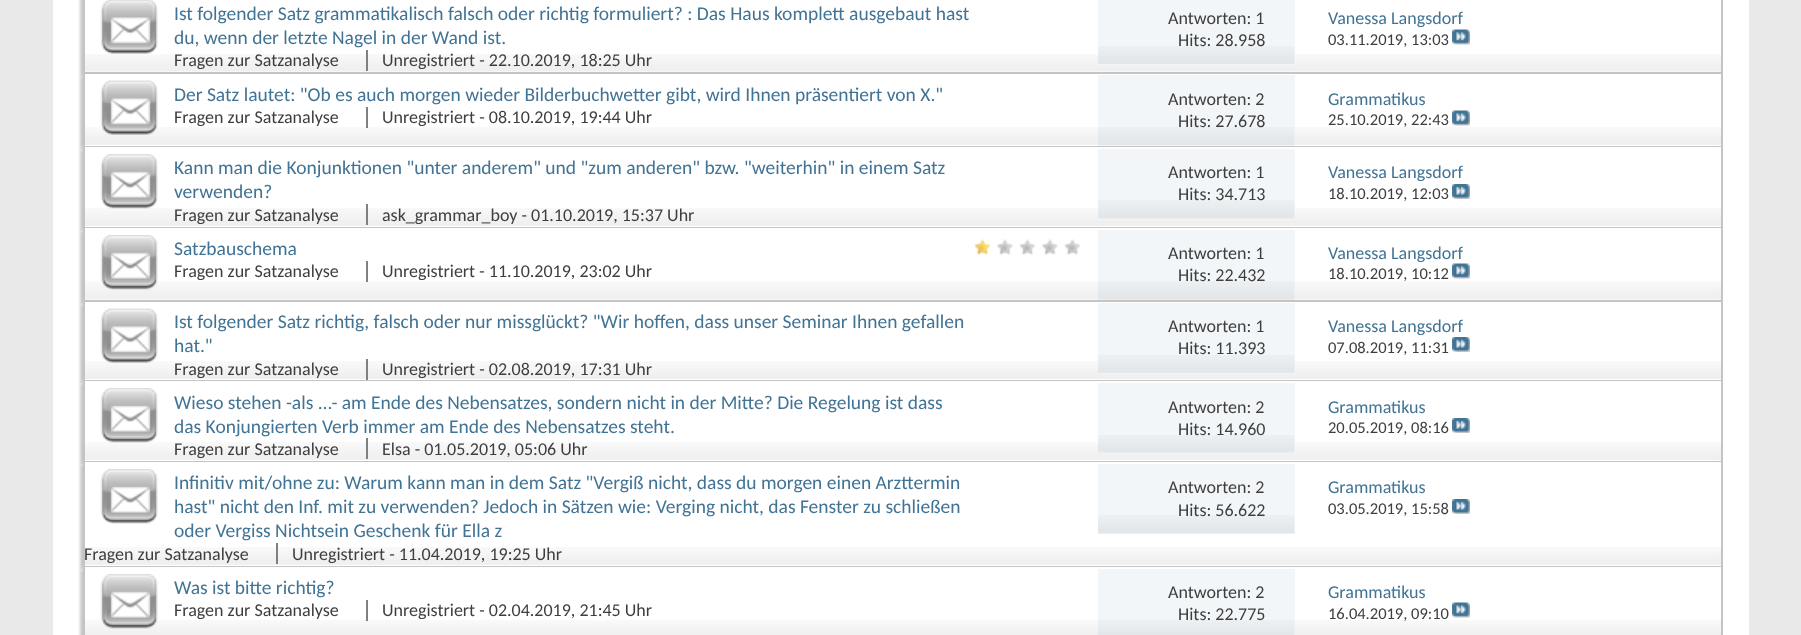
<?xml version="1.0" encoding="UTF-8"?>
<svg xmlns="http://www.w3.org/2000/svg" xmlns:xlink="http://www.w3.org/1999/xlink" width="1801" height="635">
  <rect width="100%" height="100%" fill="#e9e9e9" />
  <rect x="53" width="1696" height="635" fill="#ffffff" />
  <rect x="80" y="-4" width="1636" height="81" fill="#c8c8c8" filter="blur(1.5px)" />
  <rect x="85" width="1633" height="72" fill="#ffffff" />
  <image x="82" y="54" width="1639" height="18" xlink:href="image1.png" />
  <rect x="1721" width="2" height="74" fill="#c4c4c4" />
  <rect x="83" y="72" width="1639" height="2" fill="#c4c4c4" />
  <rect x="83" width="2" height="74" fill="#c4c4c4" />
  <image x="100" y="0" width="58" height="54" xlink:href="image2.png" />
  <rect x="366" y="50" width="2" height="21" fill="#808080" />
  <rect x="1098" width="197" height="65" fill="#f2f6f8" />
  <image x="1098" y="46" width="197" height="18" xlink:href="image3.png" />
  <image x="1452" y="29" width="18" height="16" xlink:href="image4.png" />
  <rect x="80" y="77" width="1636" height="73" fill="#c8c8c8" filter="blur(1.5px)" />
  <rect x="85" y="74" width="1633" height="72" fill="#ffffff" />
  <image x="82" y="127" width="1639" height="18" xlink:href="image5.png" />
  <rect x="1721" y="74" width="2" height="73" fill="#c4c4c4" />
  <rect x="83" y="146" width="1639" height="1" fill="#c4c4c4" />
  <rect x="83" y="74" width="2" height="73" fill="#c4c4c4" />
  <image x="100" y="80" width="58" height="55" xlink:href="image6.png" />
  <rect x="366" y="107" width="2" height="21" fill="#808080" />
  <rect x="1098" y="75" width="197" height="71" fill="#f2f6f8" />
  <image x="1098" y="127" width="197" height="18" xlink:href="image7.png" />
  <image x="1452" y="110" width="18" height="16" xlink:href="image8.png" />
  <rect x="80" y="150" width="1636" height="81" fill="#c8c8c8" filter="blur(1.5px)" />
  <rect x="85" y="147" width="1633" height="80" fill="#ffffff" />
  <image x="82" y="208" width="1639" height="18" xlink:href="image5.png" />
  <rect x="1721" y="147" width="2" height="81" fill="#c4c4c4" />
  <rect x="83" y="227" width="1639" height="1" fill="#c4c4c4" />
  <rect x="83" y="147" width="2" height="81" fill="#c4c4c4" />
  <image x="100" y="154" width="58" height="55" xlink:href="image9.png" />
  <rect x="366" y="204" width="2" height="21" fill="#808080" />
  <rect x="1098" y="149" width="197" height="70" fill="#f2f6f8" />
  <image x="1098" y="200" width="197" height="19" xlink:href="image10.png" />
  <image x="1452" y="184" width="18" height="15" xlink:href="image11.png" />
  <rect x="80" y="231" width="1636" height="74" fill="#c8c8c8" filter="blur(1.5px)" />
  <rect x="85" y="228" width="1633" height="72" fill="#ffffff" />
  <image x="82" y="281" width="1639" height="19" xlink:href="image12.png" />
  <rect x="1721" y="228" width="2" height="74" fill="#c4c4c4" />
  <rect x="83" y="300" width="1639" height="2" fill="#c4c4c4" />
  <rect x="83" y="228" width="2" height="74" fill="#c4c4c4" />
  <image x="100" y="235" width="58" height="55" xlink:href="image13.png" />
  <image x="974" y="239" width="107" height="16" xlink:href="image14.png" />
  <rect x="366" y="261" width="2" height="21" fill="#808080" />
  <rect x="1098" y="230" width="197" height="70" fill="#f2f6f8" />
  <image x="1098" y="281" width="197" height="19" xlink:href="image10.png" />
  <image x="1452" y="263" width="18" height="16" xlink:href="image4.png" />
  <rect x="80" y="305" width="1636" height="79" fill="#c8c8c8" filter="blur(1.5px)" />
  <rect x="85" y="302" width="1633" height="78" fill="#ffffff" />
  <image x="82" y="361" width="1639" height="18" xlink:href="image15.png" />
  <rect x="1721" y="302" width="2" height="79" fill="#c4c4c4" />
  <rect x="83" y="380" width="1639" height="1" fill="#c4c4c4" />
  <rect x="83" y="302" width="2" height="79" fill="#c4c4c4" />
  <image x="100" y="308" width="58" height="55" xlink:href="image16.png" />
  <rect x="366" y="359" width="2" height="21" fill="#808080" />
  <rect x="1098" y="303" width="197" height="71" fill="#f2f6f8" />
  <image x="1098" y="355" width="197" height="18" xlink:href="image17.png" />
  <image x="1452" y="337" width="18" height="15" xlink:href="image11.png" />
  <rect x="80" y="384" width="1636" height="81" fill="#c8c8c8" filter="blur(1.5px)" />
  <rect x="85" y="381" width="1633" height="80" fill="#ffffff" />
  <image x="82" y="442" width="1639" height="18" xlink:href="image18.png" />
  <rect x="1721" y="381" width="2" height="81" fill="#c4c4c4" />
  <rect x="83" y="461" width="1639" height="1" fill="#c4c4c4" />
  <rect x="83" y="381" width="2" height="81" fill="#c4c4c4" />
  <image x="100" y="388" width="58" height="55" xlink:href="image19.png" />
  <rect x="366" y="438" width="2" height="21" fill="#808080" />
  <rect x="1098" y="383" width="197" height="70" fill="#f2f6f8" />
  <image x="1098" y="435" width="197" height="18" xlink:href="image20.png" />
  <image x="1452" y="418" width="18" height="15" xlink:href="image11.png" />
  <rect x="80" y="465" width="1636" height="105" fill="#c8c8c8" filter="blur(1.5px)" />
  <rect x="85" y="462" width="1633" height="104" fill="#ffffff" />
  <image x="82" y="547" width="1639" height="18" xlink:href="image15.png" />
  <rect x="1721" y="462" width="2" height="105" fill="#c4c4c4" />
  <rect x="83" y="566" width="1639" height="1" fill="#c4c4c4" />
  <rect x="83" y="462" width="2" height="105" fill="#c4c4c4" />
  <image x="100" y="469" width="58" height="55" xlink:href="image21.png" />
  <rect x="276" y="543" width="2" height="21" fill="#808080" />
  <rect x="1098" y="464" width="197" height="70" fill="#f2f6f8" />
  <image x="1098" y="515" width="197" height="19" xlink:href="image10.png" />
  <image x="1452" y="499" width="18" height="15" xlink:href="image11.png" />
  <rect x="80" y="570" width="1636" height="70" fill="#c8c8c8" filter="blur(1.5px)" />
  <rect x="85" y="567" width="1633" height="68" fill="#ffffff" />
  <image x="82" y="620" width="1639" height="15" xlink:href="image22.png" />
  <rect x="1721" y="567" width="2" height="68" fill="#c4c4c4" />
  <rect x="83" y="567" width="2" height="68" fill="#c4c4c4" />
  <image x="100" y="574" width="58" height="55" xlink:href="image13.png" />
  <rect x="366" y="600" width="2" height="21" fill="#808080" />
  <rect x="1098" y="569" width="197" height="66" fill="#f2f6f8" />
  <image x="1098" y="620" width="197" height="15" xlink:href="image23.png" />
  <image x="1452" y="602" width="18" height="16" xlink:href="image4.png" />
  <text x="174" y="20" style="font-family: Carlito; font-size: 19.5px; fill: #417394">Ist folgender Satz grammatikalisch falsch oder richtig formuliert? : Das Haus komplett ausgebaut hast</text>
  <text x="174" y="44" style="font-family: Carlito; font-size: 19.5px; fill: #417394">du, wenn der letzte Nagel in der Wand ist.</text>
  <text x="174" y="66" style="font-family: Carlito; font-size: 18px; fill: #3e3e3e">Fragen zur Satzanalyse</text>
  <text x="382" y="66" style="font-family: Carlito; font-size: 18px; fill: #3e3e3e">Unregistriert - 22.10.2019, 18:25 Uhr</text>
  <text x="1168" y="24" style="font-family: Carlito; font-size: 18px; fill: #3e3e3e">Antworten: 1</text>
  <text x="1178" y="46" style="font-family: Carlito; font-size: 18px; fill: #3e3e3e">Hits: 28.958</text>
  <text x="1328" y="24" style="font-family: Carlito; font-size: 18px; fill: #417394">Vanessa Langsdorf</text>
  <text x="1328" y="45" style="font-family: Carlito; font-size: 16.5px; fill: #3e3e3e">03.11.2019, 13:03</text>
  <text x="174" y="101" style="font-family: Carlito; font-size: 19.5px; fill: #417394">Der Satz lautet: "Ob es auch morgen wieder Bilderbuchwetter gibt, wird Ihnen präsentiert von X."</text>
  <text x="174" y="123" style="font-family: Carlito; font-size: 18px; fill: #3e3e3e">Fragen zur Satzanalyse</text>
  <text x="382" y="123" style="font-family: Carlito; font-size: 18px; fill: #3e3e3e">Unregistriert - 08.10.2019, 19:44 Uhr</text>
  <text x="1168" y="105" style="font-family: Carlito; font-size: 18px; fill: #3e3e3e">Antworten: 2</text>
  <text x="1178" y="127" style="font-family: Carlito; font-size: 18px; fill: #3e3e3e">Hits: 27.678</text>
  <text x="1328" y="105" style="font-family: Carlito; font-size: 18px; fill: #417394">Grammatikus</text>
  <text x="1328" y="125" style="font-family: Carlito; font-size: 16.5px; fill: #3e3e3e">25.10.2019, 22:43</text>
  <text x="174" y="174" style="font-family: Carlito; font-size: 19.5px; fill: #417394">Kann man die Konjunktionen "unter anderem" und "zum anderen" bzw. "weiterhin" in einem Satz</text>
  <text x="174" y="198" style="font-family: Carlito; font-size: 19.5px; fill: #417394">verwenden?</text>
  <text x="174" y="221" style="font-family: Carlito; font-size: 18px; fill: #3e3e3e">Fragen zur Satzanalyse</text>
  <text x="382" y="221" style="font-family: Carlito; font-size: 18px; fill: #3e3e3e">ask_grammar_boy - 01.10.2019, 15:37 Uhr</text>
  <text x="1168" y="178" style="font-family: Carlito; font-size: 18px; fill: #3e3e3e">Antworten: 1</text>
  <text x="1178" y="200" style="font-family: Carlito; font-size: 18px; fill: #3e3e3e">Hits: 34.713</text>
  <text x="1328" y="178" style="font-family: Carlito; font-size: 18px; fill: #417394">Vanessa Langsdorf</text>
  <text x="1328" y="199" style="font-family: Carlito; font-size: 16.5px; fill: #3e3e3e">18.10.2019, 12:03</text>
  <text x="174" y="255" style="font-family: Carlito; font-size: 19.5px; fill: #417394">Satzbauschema</text>
  <text x="174" y="277" style="font-family: Carlito; font-size: 18px; fill: #3e3e3e">Fragen zur Satzanalyse</text>
  <text x="382" y="277" style="font-family: Carlito; font-size: 18px; fill: #3e3e3e">Unregistriert - 11.10.2019, 23:02 Uhr</text>
  <text x="1168" y="259" style="font-family: Carlito; font-size: 18px; fill: #3e3e3e">Antworten: 1</text>
  <text x="1178" y="281" style="font-family: Carlito; font-size: 18px; fill: #3e3e3e">Hits: 22.432</text>
  <text x="1328" y="259" style="font-family: Carlito; font-size: 18px; fill: #417394">Vanessa Langsdorf</text>
  <text x="1328" y="279" style="font-family: Carlito; font-size: 16.5px; fill: #3e3e3e">18.10.2019, 10:12</text>
  <text x="174" y="328" style="font-family: Carlito; font-size: 19.5px; fill: #417394">Ist folgender Satz richtig, falsch oder nur missglückt? "Wir hoffen, dass unser Seminar Ihnen gefallen</text>
  <text x="174" y="352" style="font-family: Carlito; font-size: 19.5px; fill: #417394">hat."</text>
  <text x="174" y="375" style="font-family: Carlito; font-size: 18px; fill: #3e3e3e">Fragen zur Satzanalyse</text>
  <text x="382" y="375" style="font-family: Carlito; font-size: 18px; fill: #3e3e3e">Unregistriert - 02.08.2019, 17:31 Uhr</text>
  <text x="1168" y="332" style="font-family: Carlito; font-size: 18px; fill: #3e3e3e">Antworten: 1</text>
  <text x="1178" y="354" style="font-family: Carlito; font-size: 18px; fill: #3e3e3e">Hits: 11.393</text>
  <text x="1328" y="332" style="font-family: Carlito; font-size: 18px; fill: #417394">Vanessa Langsdorf</text>
  <text x="1328" y="353" style="font-family: Carlito; font-size: 16.5px; fill: #3e3e3e">07.08.2019, 11:31</text>
  <text x="174" y="409" style="font-family: Carlito; font-size: 19.5px; fill: #417394">Wieso stehen -als ...- am Ende des Nebensatzes, sondern nicht in der Mitte? Die Regelung ist dass</text>
  <text x="174" y="433" style="font-family: Carlito; font-size: 19.5px; fill: #417394">das Konjungierten Verb immer am Ende des Nebensatzes steht.</text>
  <text x="174" y="455" style="font-family: Carlito; font-size: 18px; fill: #3e3e3e">Fragen zur Satzanalyse</text>
  <text x="382" y="455" style="font-family: Carlito; font-size: 18px; fill: #3e3e3e">Elsa - 01.05.2019, 05:06 Uhr</text>
  <text x="1168" y="413" style="font-family: Carlito; font-size: 18px; fill: #3e3e3e">Antworten: 2</text>
  <text x="1178" y="435" style="font-family: Carlito; font-size: 18px; fill: #3e3e3e">Hits: 14.960</text>
  <text x="1328" y="413" style="font-family: Carlito; font-size: 18px; fill: #417394">Grammatikus</text>
  <text x="1328" y="433" style="font-family: Carlito; font-size: 16.5px; fill: #3e3e3e">20.05.2019, 08:16</text>
  <text x="174" y="489" style="font-family: Carlito; font-size: 19.5px; fill: #417394">Infinitiv mit/ohne zu: Warum kann man in dem Satz "Vergiß nicht, dass du morgen einen Arzttermin</text>
  <text x="174" y="513" style="font-family: Carlito; font-size: 19.5px; fill: #417394">hast" nicht den Inf. mit zu verwenden? Jedoch in Sätzen wie: Verging nicht, das Fenster zu schließen</text>
  <text x="174" y="537" style="font-family: Carlito; font-size: 19.5px; fill: #417394">oder Vergiss Nichtsein Geschenk für Ella z</text>
  <text x="84" y="560" style="font-family: Carlito; font-size: 18px; fill: #3e3e3e">Fragen zur Satzanalyse</text>
  <text x="292" y="560" style="font-family: Carlito; font-size: 18px; fill: #3e3e3e">Unregistriert - 11.04.2019, 19:25 Uhr</text>
  <text x="1168" y="493" style="font-family: Carlito; font-size: 18px; fill: #3e3e3e">Antworten: 2</text>
  <text x="1178" y="516" style="font-family: Carlito; font-size: 18px; fill: #3e3e3e">Hits: 56.622</text>
  <text x="1328" y="493" style="font-family: Carlito; font-size: 18px; fill: #417394">Grammatikus</text>
  <text x="1328" y="514" style="font-family: Carlito; font-size: 16.5px; fill: #3e3e3e">03.05.2019, 15:58</text>
  <text x="174" y="594" style="font-family: Carlito; font-size: 19.5px; fill: #417394">Was ist bitte richtig?</text>
  <text x="174" y="616" style="font-family: Carlito; font-size: 18px; fill: #3e3e3e">Fragen zur Satzanalyse</text>
  <text x="382" y="616" style="font-family: Carlito; font-size: 18px; fill: #3e3e3e">Unregistriert - 02.04.2019, 21:45 Uhr</text>
  <text x="1168" y="598" style="font-family: Carlito; font-size: 18px; fill: #3e3e3e">Antworten: 2</text>
  <text x="1178" y="620" style="font-family: Carlito; font-size: 18px; fill: #3e3e3e">Hits: 22.775</text>
  <text x="1328" y="598" style="font-family: Carlito; font-size: 18px; fill: #417394">Grammatikus</text>
  <text x="1328" y="619" style="font-family: Carlito; font-size: 16.5px; fill: #3e3e3e">16.04.2019, 09:10</text>
</svg>
